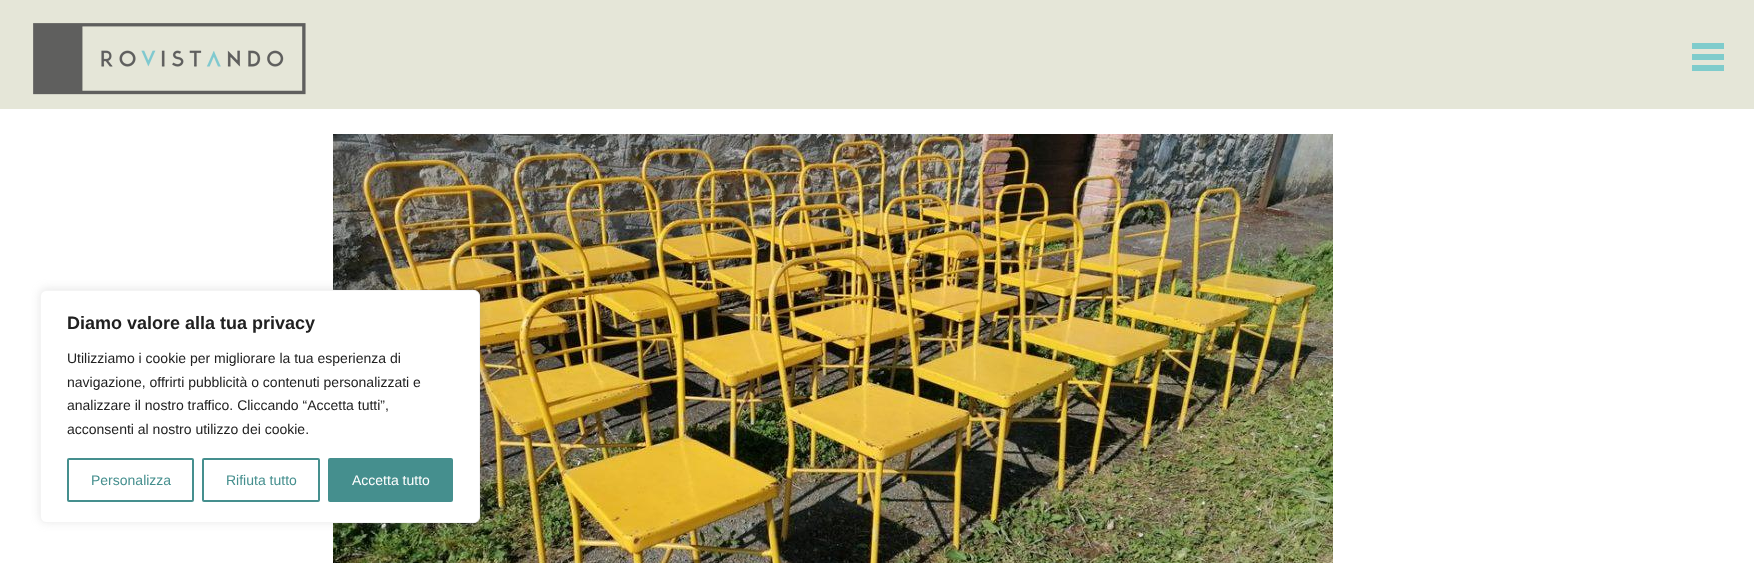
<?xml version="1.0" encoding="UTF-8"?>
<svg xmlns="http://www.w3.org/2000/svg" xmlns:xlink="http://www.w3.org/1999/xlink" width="1754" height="563">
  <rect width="100%" height="100%" fill="#ffffff" />
  <rect width="1754" height="109" fill="#e5e6d8" />
  <image x="33" y="23" width="273" height="72" xlink:href="image1.png" />
  <image x="1692" y="43" width="32" height="28" xlink:href="image2.png" />
  <image x="333" y="134" width="1000" height="429" xlink:href="image3.png" />
  <rect x="40" y="289" width="440" height="233" rx="6" fill="#acabab" fill-opacity="0.3" filter="blur(5px)" />
  <rect x="40.5" y="290.5" width="439" height="232" rx="5.5" fill="#ffffff" stroke="#f4f4f4" />
  <rect x="68" y="459" width="125" height="42" rx="1" fill="none" stroke="#458f8e" stroke-width="2" />
  <rect x="203" y="459" width="116" height="42" rx="1" fill="none" stroke="#458f8e" stroke-width="2" />
  <rect x="329" y="459" width="123" height="42" rx="1" fill="#458f8e" stroke="#458f8e" stroke-width="2" />
  <text x="67" y="329" style="font-family: Liberation Sans; font-size: 18px; font-weight: bold; fill: #212121">Diamo valore alla tua privacy</text>
  <text x="67" y="363" style="font-family: Liberation Sans; font-size: 14px; fill: #212121">Utilizziamo i cookie per migliorare la tua esperienza di</text>
  <text x="67" y="387" style="font-family: Liberation Sans; font-size: 14px; fill: #212121">navigazione, offrirti pubblicità o contenuti personalizzati e</text>
  <text x="67" y="410" style="font-family: Liberation Sans; font-size: 14px; fill: #212121">analizzare il nostro traffico. Cliccando “Accetta tutti”,</text>
  <text x="67" y="434" style="font-family: Liberation Sans; font-size: 14px; fill: #212121">acconsenti al nostro utilizzo dei cookie.</text>
  <text x="91" y="485" style="font-family: Liberation Sans; font-size: 14px; fill: #458f8e">Personalizza</text>
  <text x="226" y="485" style="font-family: Liberation Sans; font-size: 14px; fill: #458f8e">Rifiuta tutto</text>
  <text x="352" y="485" style="font-family: Liberation Sans; font-size: 14px; fill: #ffffff">Accetta tutto</text>
</svg>
